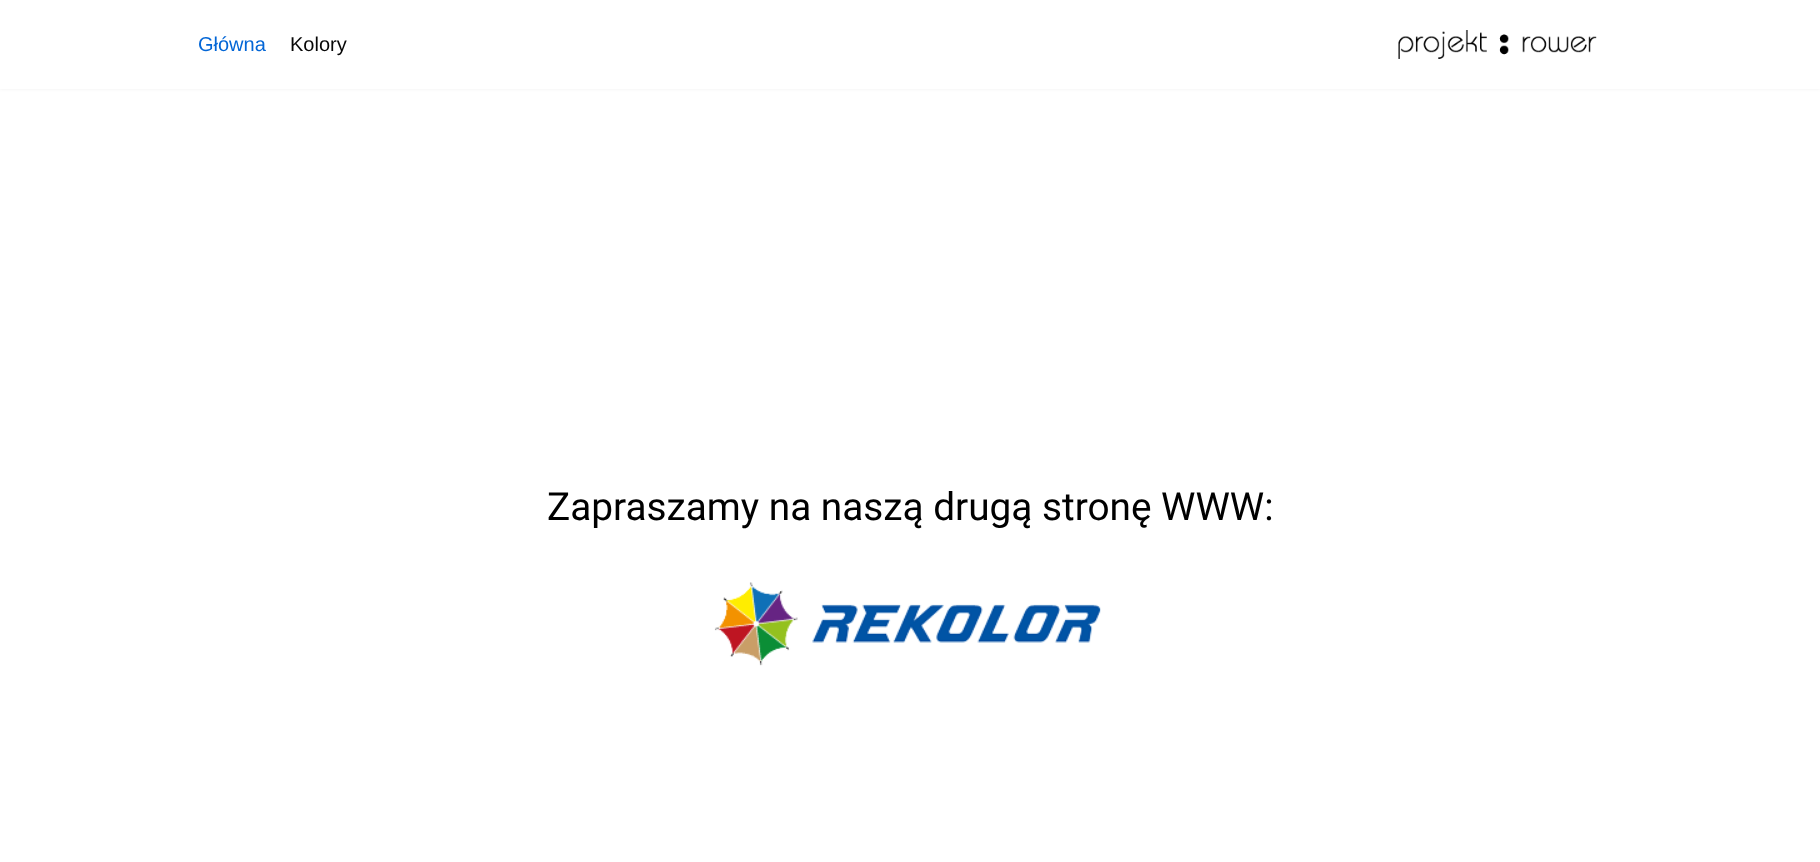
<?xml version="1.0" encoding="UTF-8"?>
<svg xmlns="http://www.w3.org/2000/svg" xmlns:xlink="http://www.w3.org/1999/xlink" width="1820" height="862">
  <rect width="100%" height="100%" fill="#ffffff" />
  <rect y="-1" width="1820" height="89" fill="#000000" fill-opacity="0.1" filter="blur(2px)" />
  <rect width="1820" height="89" fill="#ffffff" />
  <image x="1398" y="30" width="199" height="29" xlink:href="image1.png" />
  <image x="714" y="582" width="387" height="84" xlink:href="image2.png" />
  <text x="198" y="51" style="font-family: Liberation Sans; font-size: 20px; fill: #0366d6">Główna</text>
  <text x="290" y="51" style="font-family: Liberation Sans; font-size: 20px; fill: #070707">Kolory</text>
  <text x="547" y="520" style="font-family: Roboto; font-size: 38.75px; fill: #000000">Zapraszamy na naszą drugą stronę WWW:</text>
</svg>
